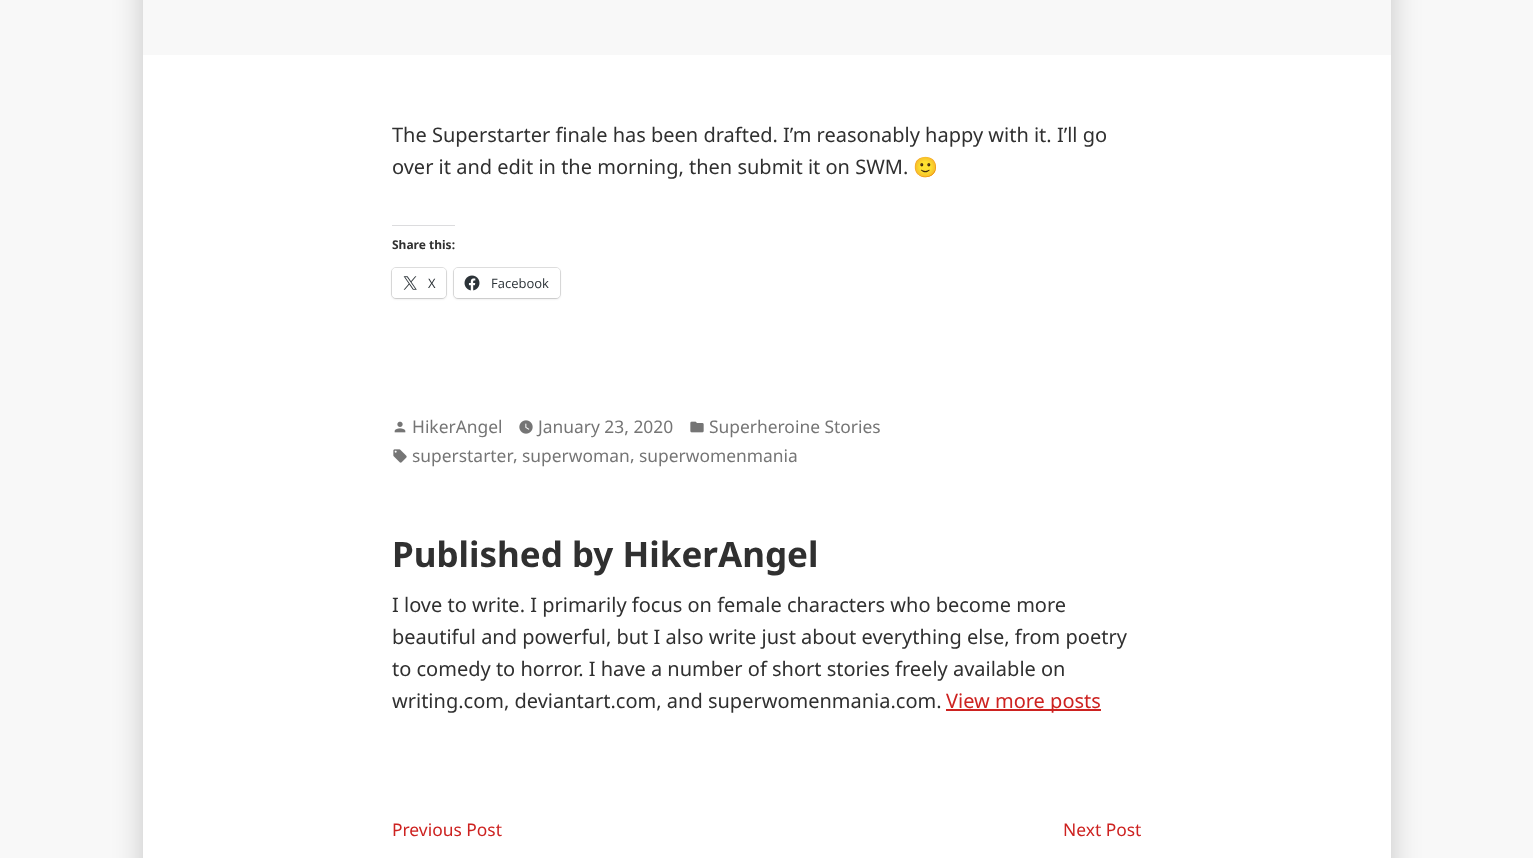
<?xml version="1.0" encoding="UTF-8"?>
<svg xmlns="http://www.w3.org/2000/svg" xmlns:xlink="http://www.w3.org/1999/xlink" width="1533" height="858">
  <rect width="100%" height="100%" fill="#f8f8f8" />
  <rect x="143" y="-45" width="1248" height="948" fill="#000000" fill-opacity="0.2" filter="blur(15px)" />
  <rect x="143" y="55" width="1248" height="803" fill="#ffffff" />
  <rect x="143" width="1248" height="55" fill="#f8f8f8" />
  <rect x="392" y="225" width="63" height="1" fill="#dcdcde" />
  <rect x="391.5" y="267.5" width="55" height="31" rx="4.5" fill="none" stroke="#e0e0e0" />
  <rect x="392" y="269" width="54" height="30" rx="4" fill="#000000" fill-opacity="0.12" filter="blur(1px)" />
  <rect x="392" y="268" width="54" height="30" rx="4" fill="#ffffff" />
  <image x="403" y="276" width="14" height="14" xlink:href="image1.png" />
  <rect x="453.5" y="267.5" width="107" height="31" rx="4.5" fill="none" stroke="#e0e0e0" />
  <rect x="454" y="269" width="106" height="30" rx="4" fill="#000000" fill-opacity="0.12" filter="blur(1px)" />
  <rect x="454" y="268" width="106" height="30" rx="4" fill="#ffffff" />
  <image x="464" y="275" width="16" height="16" xlink:href="image2.png" />
  <image x="394" y="421" width="12" height="12" xlink:href="image3.png" />
  <image x="519" y="420" width="14" height="14" xlink:href="image4.png" />
  <image x="690" y="421" width="14" height="12" xlink:href="image5.png" />
  <image x="393" y="449" width="14" height="14" xlink:href="image6.png" />
  <rect x="946" y="709" width="155" height="2" fill="#cd2220" />
  <text x="392" y="142" style="font-family: Noto Sans; font-size: 20px; fill: #303030">The Superstarter finale has been drafted. I’m reasonably happy with it. I’ll go</text>
  <text x="392" y="174" style="font-family: Noto Sans; font-size: 20px; fill: #303030">over it and edit in the morning, then submit it on SWM.</text>
  <text x="913" y="174" style="font-family: Noto Color Emoji; font-size: 20px; fill: #303030">🙂</text>
  <text x="392" y="249" style="font-family: Noto Sans; font-size: 12px; font-weight: bold; fill: #303030">Share this:</text>
  <text x="428" y="288" style="font-family: Open Sans; font-size: 13px; fill: #2c3338">X</text>
  <text x="491" y="288" style="font-family: Open Sans; font-size: 13px; fill: #2c3338">Facebook</text>
  <text x="412" y="433" style="font-family: Noto Sans; font-size: 17.4px; fill: #757575">HikerAngel</text>
  <text x="538" y="433" style="font-family: Noto Sans; font-size: 17.4px; fill: #757575">January 23, 2020</text>
  <text x="709" y="433" style="font-family: Noto Sans; font-size: 17.4px; fill: #757575">Superheroine Stories</text>
  <text x="412" y="462" style="font-family: Noto Sans; font-size: 17.4px; fill: #757575">superstarter</text>
  <text x="513" y="461" style="font-family: Noto Sans; font-size: 17.4px; fill: #757575">,</text>
  <text x="522" y="462" style="font-family: Noto Sans; font-size: 17.4px; fill: #757575">superwoman</text>
  <text x="630" y="461" style="font-family: Noto Sans; font-size: 17.4px; fill: #757575">,</text>
  <text x="639" y="462" style="font-family: Noto Sans; font-size: 17.4px; fill: #757575">superwomenmania</text>
  <text x="392" y="567" style="font-family: Noto Sans; font-size: 35px; font-weight: bold; fill: #303030">Published by HikerAngel</text>
  <text x="392" y="612" style="font-family: Noto Sans; font-size: 20px; fill: #303030">I love to write. I primarily focus on female characters who become more</text>
  <text x="392" y="644" style="font-family: Noto Sans; font-size: 20px; fill: #303030">beautiful and powerful, but I also write just about everything else, from poetry</text>
  <text x="392" y="676" style="font-family: Noto Sans; font-size: 20px; fill: #303030">to comedy to horror. I have a number of short stories freely available on</text>
  <text x="392" y="708" style="font-family: Noto Sans; font-size: 20px; fill: #303030">writing.com, deviantart.com, and superwomenmania.com.</text>
  <text x="946" y="708" style="font-family: Noto Sans; font-size: 20px; fill: #cd2220">View more posts</text>
  <text x="392" y="836" style="font-family: Noto Sans; font-size: 17.4px; fill: #cd2220">Previous Post</text>
  <text x="1063" y="836" style="font-family: Noto Sans; font-size: 17.4px; fill: #cd2220">Next Post</text>
</svg>
